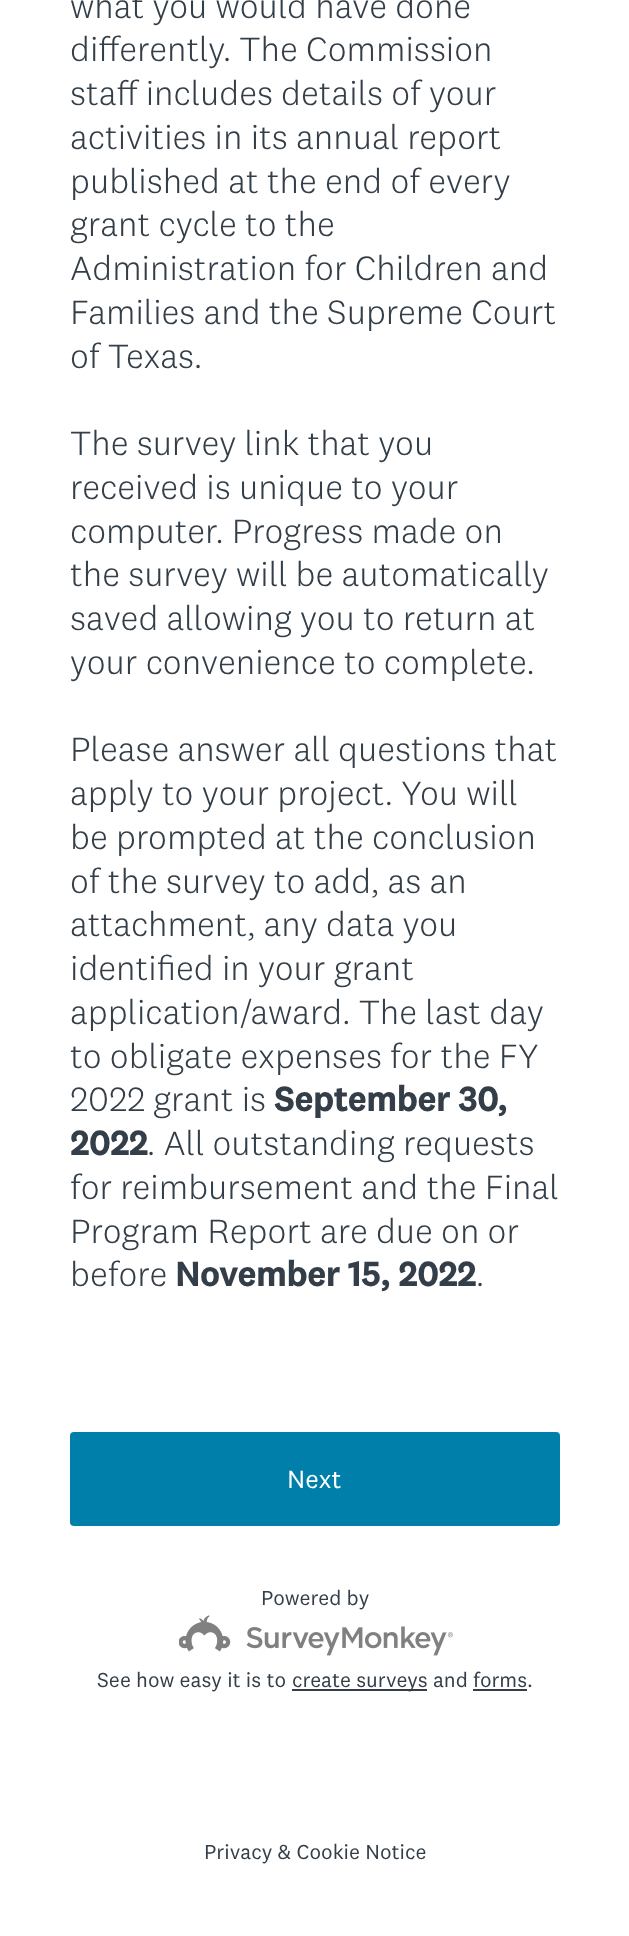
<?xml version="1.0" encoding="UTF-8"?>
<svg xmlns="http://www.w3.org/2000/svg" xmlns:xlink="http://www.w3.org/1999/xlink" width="629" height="1936">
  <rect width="100%" height="100%" fill="#ffffff" />
  <rect x="70" y="1432" width="490" height="94" rx="4" fill="#007faa" />
  <image x="179" y="1615" width="274" height="41" xlink:href="image1.png" />
  <rect x="292" y="1689" width="135" height="2" fill="#333e48" />
  <rect x="473" y="1689" width="54" height="2" fill="#333e48" />
  <text x="70" y="18" style="font-family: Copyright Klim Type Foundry; font-size: 35px; font-weight: 300; fill: #333e48">what you would have done</text>
  <text x="70" y="61" style="font-family: Copyright Klim Type Foundry; font-size: 35px; font-weight: 300; fill: #333e48">differently. The Commission</text>
  <text x="70" y="105" style="font-family: Copyright Klim Type Foundry; font-size: 35px; font-weight: 300; fill: #333e48">staff includes details of your</text>
  <text x="70" y="149" style="font-family: Copyright Klim Type Foundry; font-size: 35px; font-weight: 300; fill: #333e48">activities in its annual report</text>
  <text x="70" y="193" style="font-family: Copyright Klim Type Foundry; font-size: 35px; font-weight: 300; fill: #333e48">published at the end of every</text>
  <text x="70" y="236" style="font-family: Copyright Klim Type Foundry; font-size: 35px; font-weight: 300; fill: #333e48">grant cycle to the</text>
  <text x="70" y="280" style="font-family: Copyright Klim Type Foundry; font-size: 35px; font-weight: 300; fill: #333e48">Administration for Children and</text>
  <text x="70" y="324" style="font-family: Copyright Klim Type Foundry; font-size: 35px; font-weight: 300; fill: #333e48">Families and the Supreme Court</text>
  <text x="70" y="368" style="font-family: Copyright Klim Type Foundry; font-size: 35px; font-weight: 300; fill: #333e48">of Texas.</text>
  <text x="70" y="455" style="font-family: Copyright Klim Type Foundry; font-size: 35px; font-weight: 300; fill: #333e48">The survey link that you</text>
  <text x="70" y="499" style="font-family: Copyright Klim Type Foundry; font-size: 35px; font-weight: 300; fill: #333e48">received is unique to your</text>
  <text x="70" y="543" style="font-family: Copyright Klim Type Foundry; font-size: 35px; font-weight: 300; fill: #333e48">computer. Progress made on</text>
  <text x="70" y="586" style="font-family: Copyright Klim Type Foundry; font-size: 35px; font-weight: 300; fill: #333e48">the survey will be automatically</text>
  <text x="70" y="630" style="font-family: Copyright Klim Type Foundry; font-size: 35px; font-weight: 300; fill: #333e48">saved allowing you to return at</text>
  <text x="70" y="674" style="font-family: Copyright Klim Type Foundry; font-size: 35px; font-weight: 300; fill: #333e48">your convenience to complete.</text>
  <text x="70" y="761" style="font-family: Copyright Klim Type Foundry; font-size: 35px; font-weight: 300; fill: #333e48">Please answer all questions that</text>
  <text x="70" y="805" style="font-family: Copyright Klim Type Foundry; font-size: 35px; font-weight: 300; fill: #333e48">apply to your project. You will</text>
  <text x="70" y="849" style="font-family: Copyright Klim Type Foundry; font-size: 35px; font-weight: 300; fill: #333e48">be prompted at the conclusion</text>
  <text x="70" y="893" style="font-family: Copyright Klim Type Foundry; font-size: 35px; font-weight: 300; fill: #333e48">of the survey to add, as an</text>
  <text x="70" y="936" style="font-family: Copyright Klim Type Foundry; font-size: 35px; font-weight: 300; fill: #333e48">attachment, any data you</text>
  <text x="70" y="980" style="font-family: Copyright Klim Type Foundry; font-size: 35px; font-weight: 300; fill: #333e48">identified in your grant</text>
  <text x="70" y="1024" style="font-family: Copyright Klim Type Foundry; font-size: 35px; font-weight: 300; fill: #333e48">application/award. The last day</text>
  <text x="70" y="1068" style="font-family: Copyright Klim Type Foundry; font-size: 35px; font-weight: 300; fill: #333e48">to obligate expenses for the FY</text>
  <text x="70" y="1111" style="font-family: Copyright Klim Type Foundry; font-size: 35px; font-weight: 300; fill: #333e48">2022 grant is</text>
  <text x="274" y="1111" style="font-family: Copyright Klim Type Foundry; font-size: 35px; font-weight: bold; fill: #333e48">September 30,</text>
  <text x="70" y="1155" style="font-family: Copyright Klim Type Foundry; font-size: 35px; font-weight: bold; fill: #333e48">2022</text>
  <text x="147" y="1155" style="font-family: Copyright Klim Type Foundry; font-size: 35px; font-weight: 300; fill: #333e48">. All outstanding requests</text>
  <text x="70" y="1199" style="font-family: Copyright Klim Type Foundry; font-size: 35px; font-weight: 300; fill: #333e48">for reimbursement and the Final</text>
  <text x="70" y="1243" style="font-family: Copyright Klim Type Foundry; font-size: 35px; font-weight: 300; fill: #333e48">Program Report are due on or</text>
  <text x="70" y="1286" style="font-family: Copyright Klim Type Foundry; font-size: 35px; font-weight: 300; fill: #333e48">before</text>
  <text x="175" y="1286" style="font-family: Copyright Klim Type Foundry; font-size: 35px; font-weight: bold; fill: #333e48">November 15, 2022</text>
  <text x="476" y="1286" style="font-family: Copyright Klim Type Foundry; font-size: 35px; font-weight: 300; fill: #333e48">.</text>
  <text x="287" y="1488" style="font-family: Copyright Klim Type Foundry; font-size: 26px; fill: #ffffff">Next</text>
  <text x="261" y="1605" style="font-family: Copyright Klim Type Foundry; font-size: 21px; fill: #333e48">Powered by</text>
  <text x="97" y="1687" style="font-family: Copyright Klim Type Foundry; font-size: 21px; fill: #333e48">See how easy it is to</text>
  <text x="292" y="1687" style="font-family: Copyright Klim Type Foundry; font-size: 21px; fill: #333e48">create surveys and forms.</text>
  <text x="204" y="1859" style="font-family: Copyright Klim Type Foundry; font-size: 21px; fill: #333e48">Privacy &amp; Cookie Notice</text>
</svg>
